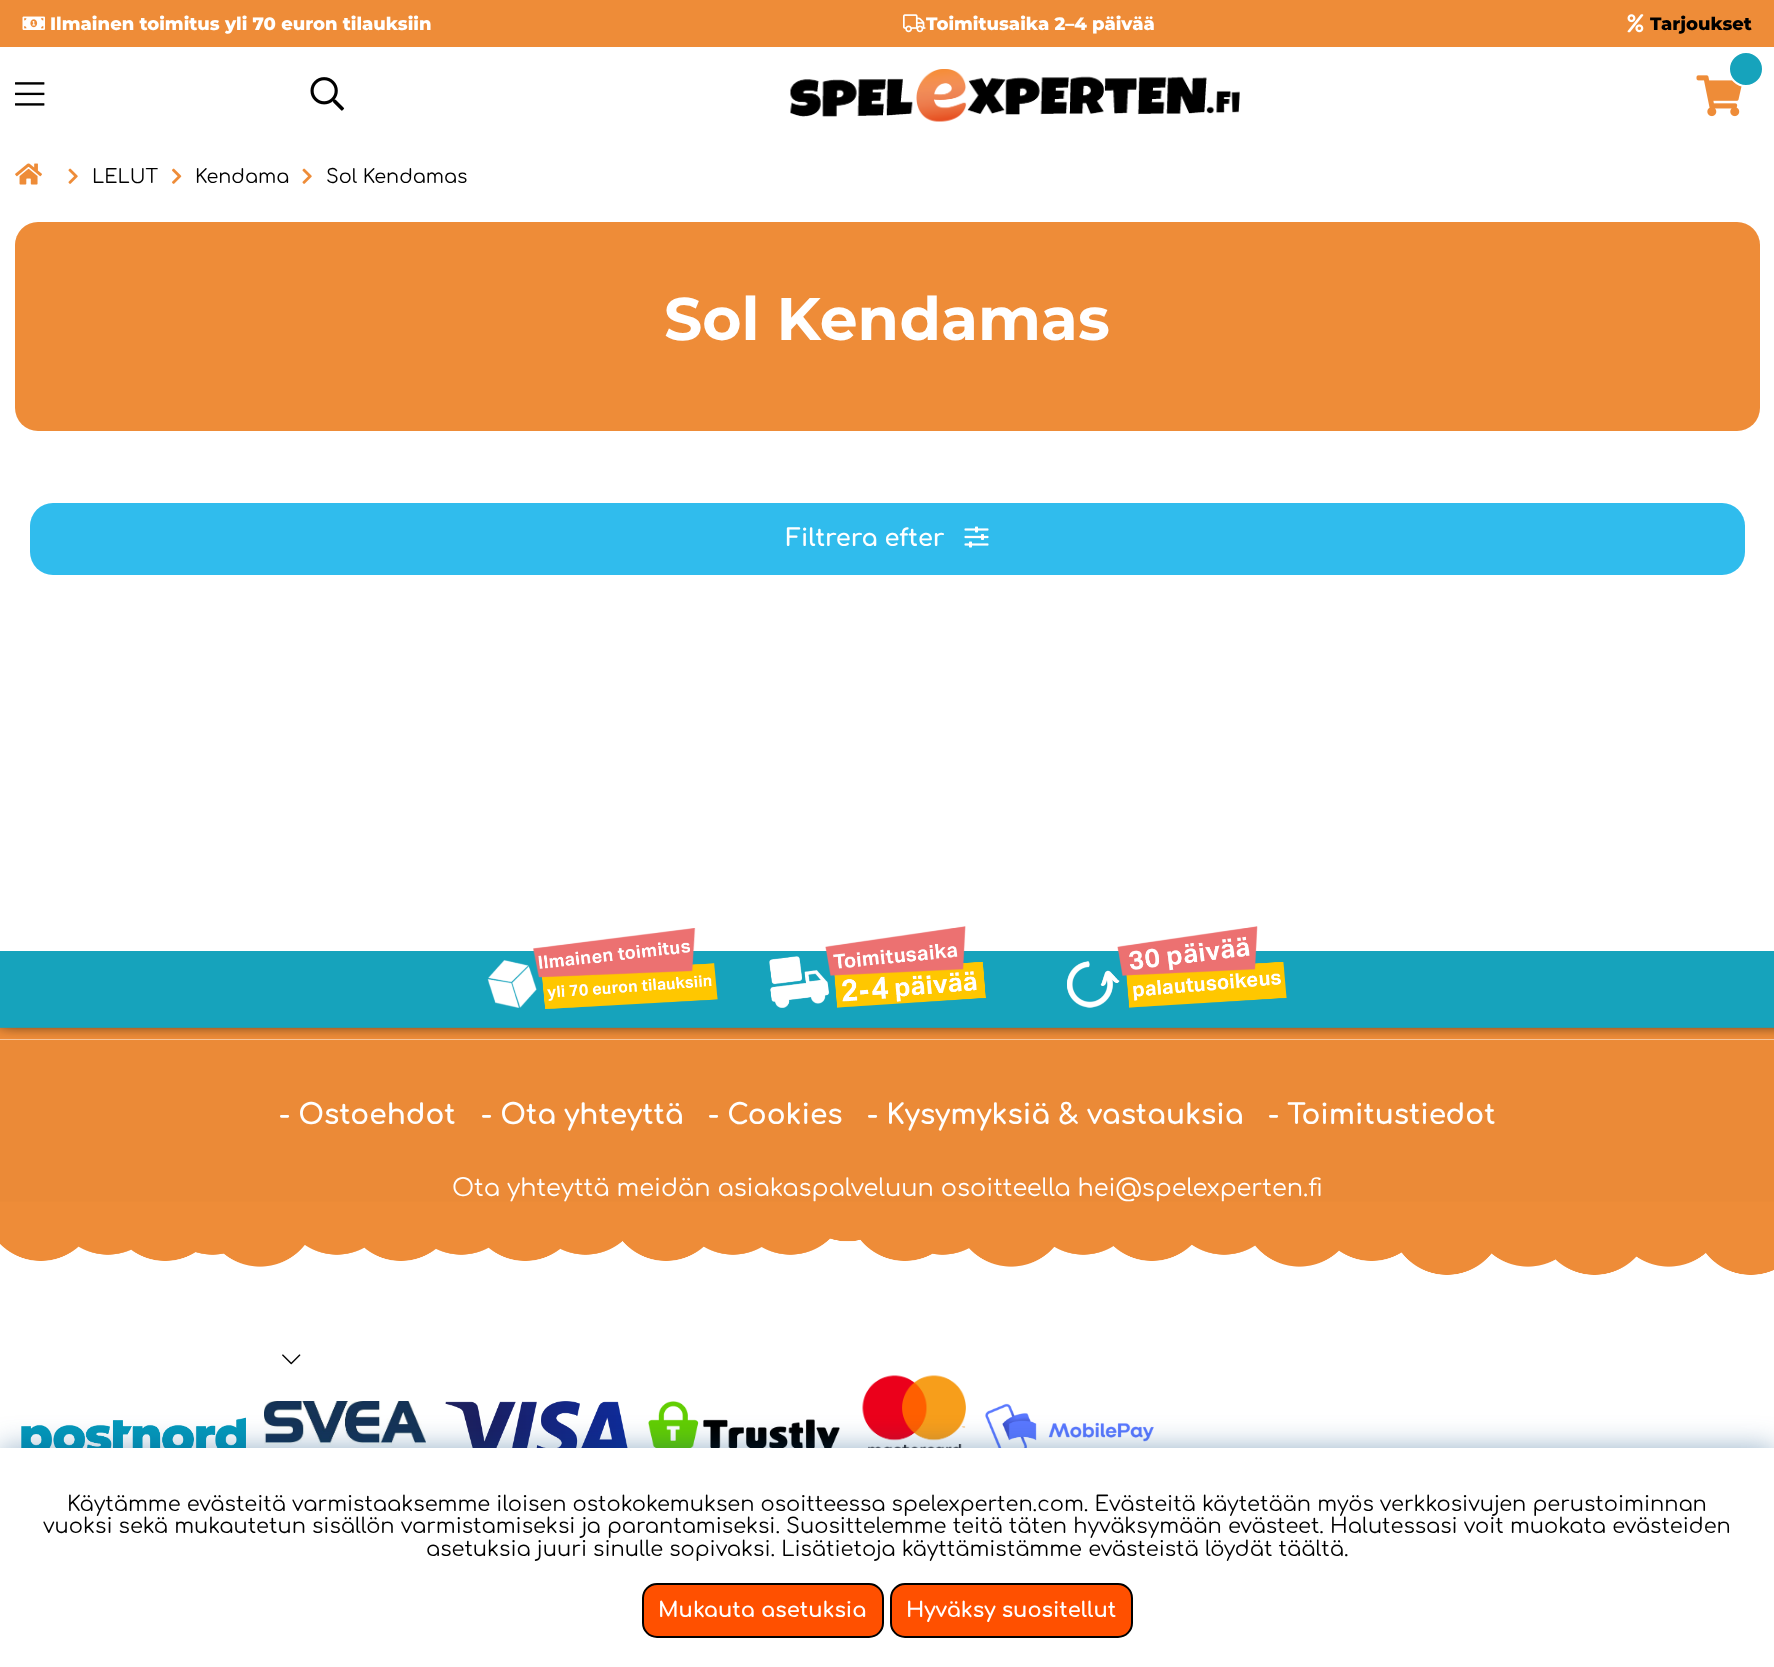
<?xml version="1.0" encoding="UTF-8"?>
<svg xmlns="http://www.w3.org/2000/svg" xmlns:xlink="http://www.w3.org/1999/xlink" width="1774" height="1667">
  <rect width="100%" height="100%" fill="#ffffff" />
  <rect width="1774" height="47" fill="#ee8c38" />
  <image x="22" y="16" width="23" height="14" xlink:href="image1.png" />
  <image x="903" y="14" width="23" height="19" xlink:href="image2.png" />
  <image x="1627" y="14" width="17" height="19" xlink:href="image3.png" />
  <image x="15" y="82" width="30" height="24" xlink:href="image4.png" />
  <image x="310" y="77" width="35" height="34" xlink:href="image5.png" />
  <image x="790" y="69" width="450" height="53" xlink:href="image6.png" />
  <image x="1696" y="75" width="46" height="42" xlink:href="image7.png" />
  <circle cx="1746" cy="69" r="17" fill="#16a3bc" stroke="#ffffff" stroke-width="2" />
  <image x="15" y="163" width="27" height="22" xlink:href="image8.png" />
  <image x="68" y="168" width="10" height="16" xlink:href="image9.png" />
  <image x="172" y="168" width="10" height="16" xlink:href="image10.png" />
  <image x="302" y="168" width="10" height="16" xlink:href="image9.png" />
  <rect x="15" y="222" width="1745" height="209" rx="23" fill="#ee8c38" />
  <rect x="30" y="503" width="1715" height="72" rx="23" fill="#30bced" />
  <image x="964" y="526" width="25" height="22" xlink:href="image11.png" />
  <image x="0" y="926" width="1774" height="114" xlink:href="image12.png" />
  <rect y="1040" width="1774" height="162" fill="#eb8a37" />
  <image x="282" y="1354" width="19" height="11" xlink:href="image14.png" />
  <image x="21" y="1417" width="225" height="31" xlink:href="image15.png" />
  <image x="264" y="1401" width="162" height="47" xlink:href="image16.png" />
  <image x="445" y="1401" width="183" height="47" xlink:href="image17.png" />
  <image x="648" y="1401" width="192" height="47" xlink:href="image18.png" />
  <image x="862" y="1375" width="104" height="73" xlink:href="image19.png" />
  <image x="985" y="1403" width="169" height="45" xlink:href="image20.png" />
  <rect y="1449" width="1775" height="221" fill="#00427a" fill-opacity="0.44" filter="blur(15px)" />
  <rect y="1448" width="1774" height="219" fill="#ffffff" />
  <rect x="643" y="1584" width="240" height="53" rx="14" fill="#ff5000" stroke="#000000" stroke-width="2" />
  <rect x="891" y="1584" width="241" height="53" rx="14" fill="#ff5000" stroke="#000000" stroke-width="2" />
  <text x="50" y="30" style="font-family: Montserrat; font-size: 18px; font-weight: 800; fill: #ffffff">Ilmainen toimitus yli 70 euron tilauksiin</text>
  <text x="926" y="30" style="font-family: Montserrat; font-size: 18px; font-weight: 800; fill: #ffffff">Toimitusaika 2–4 päivää</text>
  <text x="1650" y="30" style="font-family: Montserrat; font-size: 18px; font-weight: 800; fill: #000000">Tarjoukset</text>
  <text x="92" y="183" style="font-family: Comfortaa; font-size: 19.25px; fill: #000000">LELUT</text>
  <text x="195" y="183" style="font-family: Comfortaa; font-size: 19.25px; fill: #000000">Kendama</text>
  <text x="326" y="183" style="font-family: Comfortaa; font-size: 19.25px; fill: #000000">Sol Kendamas</text>
  <text x="664" y="340" style="font-family: Montserrat; font-size: 60px; font-weight: bold; fill: #ffffff">Sol Kendamas</text>
  <text x="786" y="546" style="font-family: Comfortaa; font-size: 24px; font-weight: bold; fill: #ffffff">Filtrera efter</text>
  <text x="279" y="1124" style="font-family: Comfortaa; font-size: 28px; font-weight: bold; fill: #ffffff">- Ostoehdot</text>
  <text x="481" y="1124" style="font-family: Comfortaa; font-size: 28px; font-weight: bold; fill: #ffffff">- Ota yhteyttä</text>
  <text x="708" y="1124" style="font-family: Comfortaa; font-size: 28px; font-weight: bold; fill: #ffffff">- Cookies</text>
  <text x="867" y="1124" style="font-family: Comfortaa; font-size: 28px; font-weight: bold; fill: #ffffff">- Kysymyksiä &amp; vastauksia</text>
  <text x="1268" y="1124" style="font-family: Comfortaa; font-size: 28px; font-weight: bold; fill: #ffffff">- Toimitustiedot</text>
  <text x="452" y="1196" style="font-family: Comfortaa; font-size: 24px; fill: #ffffff">Ota yhteyttä meidän asiakaspalveluun osoitteella hei@spelexperten.fi</text>
  <image x="0" y="1201" width="1774" height="74" xlink:href="image13.png" />
  <text x="67" y="1511" style="font-family: Comfortaa; font-size: 21px; fill: #000000">Käytämme evästeitä varmistaaksemme iloisen ostokokemuksen osoitteessa spelexperten.com. Evästeitä käytetään myös verkkosivujen perustoiminnan</text>
  <text x="43" y="1533" style="font-family: Comfortaa; font-size: 21px; fill: #000000">vuoksi sekä mukautetun sisällön varmistamiseksi ja parantamiseksi. Suosittelemme teitä täten hyväksymään evästeet. Halutessasi voit muokata evästeiden</text>
  <text x="426" y="1556" style="font-family: Comfortaa; font-size: 21px; fill: #000000">asetuksia juuri sinulle sopivaksi. Lisätietoja käyttämistämme evästeistä löydät täältä.</text>
  <text x="658" y="1617" style="font-family: Comfortaa; font-size: 21px; font-weight: bold; fill: #ffffff">Mukauta asetuksia</text>
  <text x="906" y="1617" style="font-family: Comfortaa; font-size: 21px; font-weight: bold; fill: #ffffff">Hyväksy suositellut</text>
</svg>
